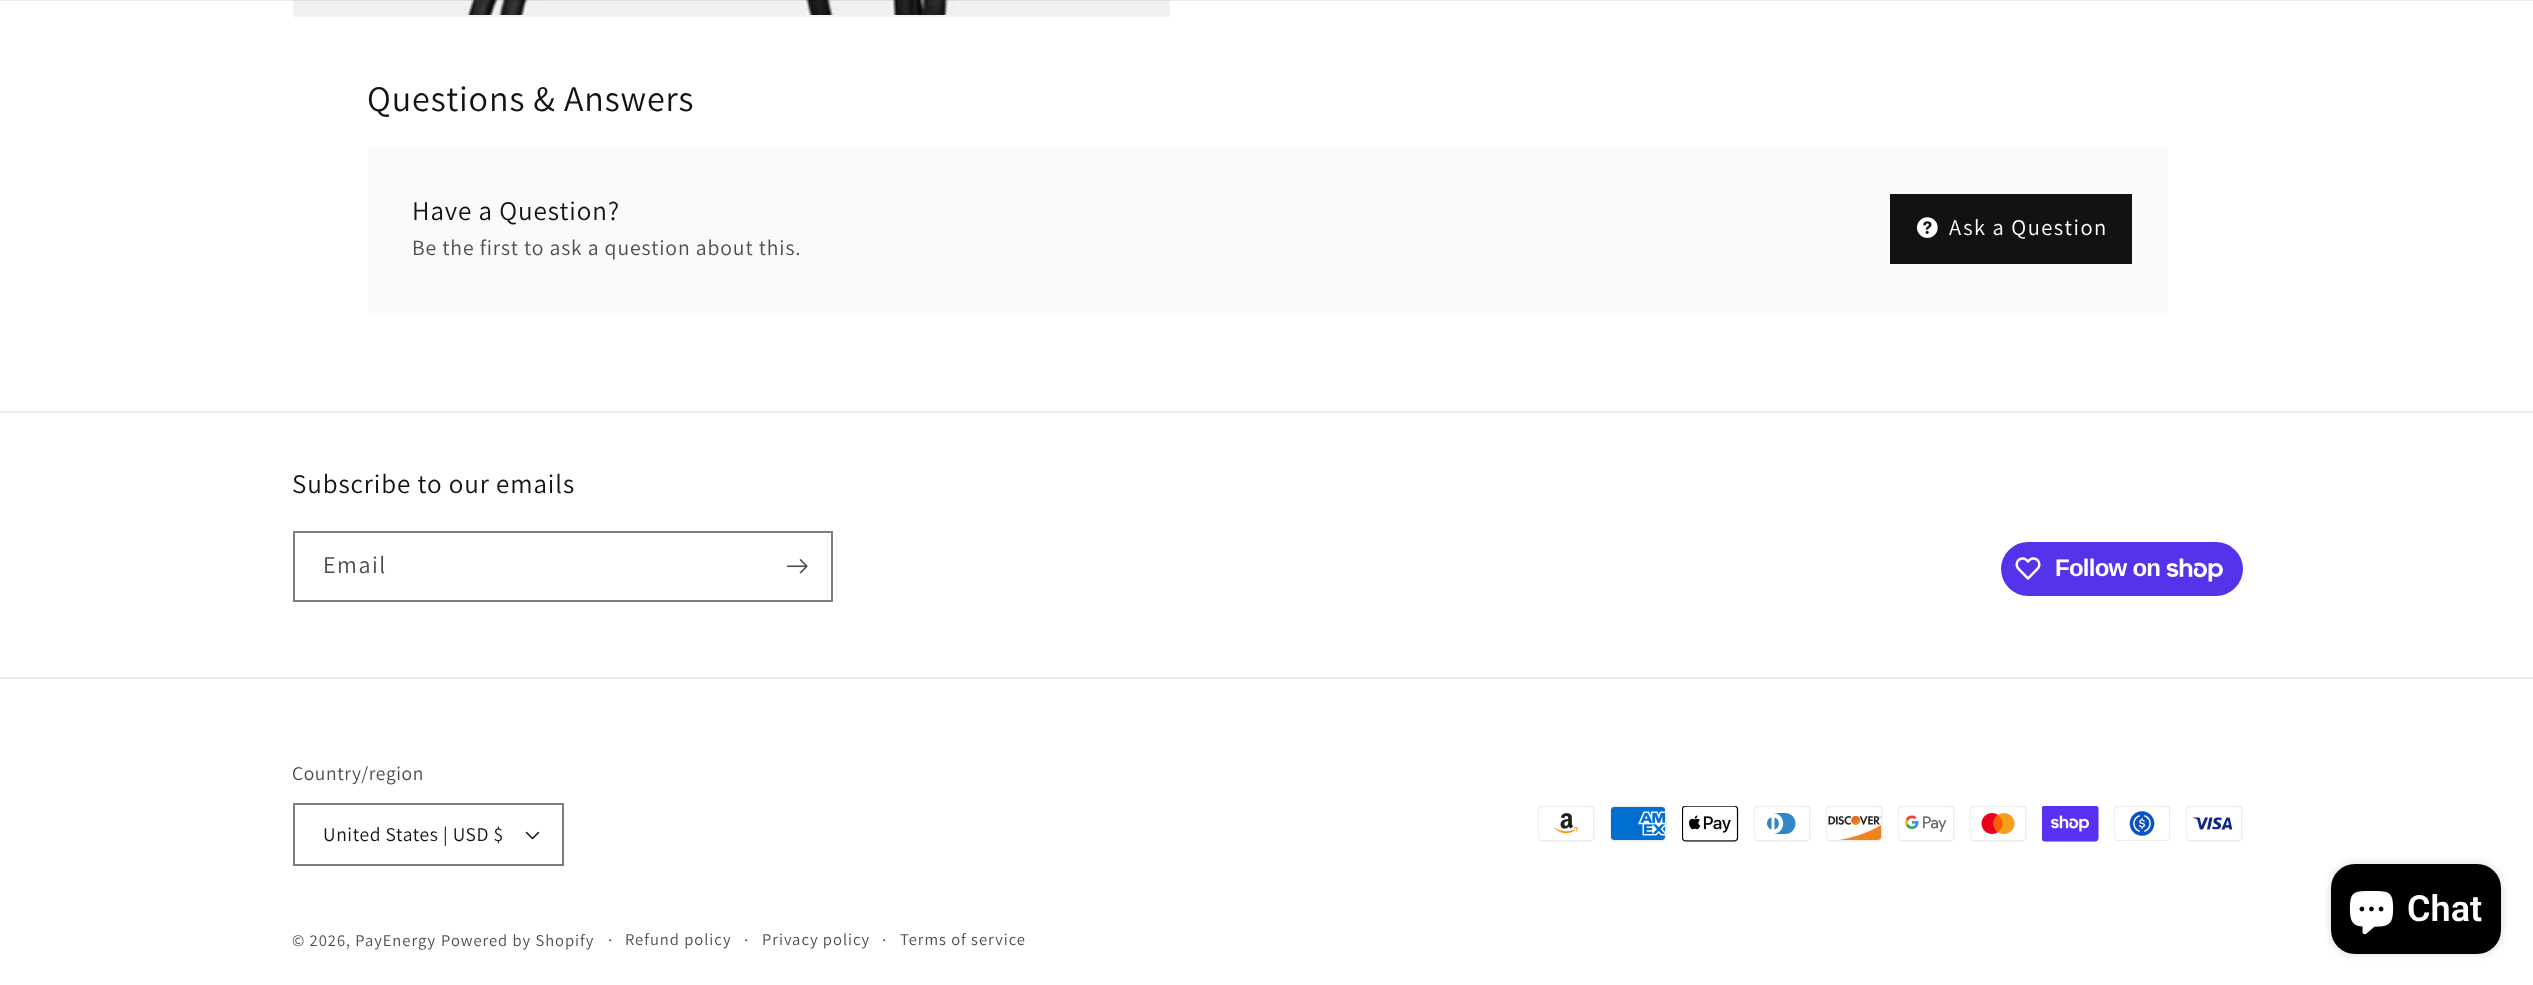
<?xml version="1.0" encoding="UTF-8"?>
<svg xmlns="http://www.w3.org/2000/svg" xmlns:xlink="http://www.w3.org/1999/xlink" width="2533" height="985">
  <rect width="100%" height="100%" fill="#ffffff" />
  <rect x="294" y="-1" width="875" height="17" fill="none" stroke="#f3f3f3" stroke-width="2" />
  <image x="295" y="0" width="873" height="15" xlink:href="image1.png" />
  <rect width="2533" height="1" fill="#121212" fill-opacity="0.08" />
  <rect x="368" y="147" width="1800" height="168" fill="#fafafa" />
  <rect x="1890" y="194" width="242" height="70" fill="#121212" />
  <image x="1917" y="217" width="21" height="21" xlink:href="image2.png" />
  <rect y="411" width="2533" height="2" fill="#ececec" />
  <rect x="294" y="532" width="538" height="69" fill="none" stroke="#7d7d7d" stroke-width="2" />
  <image x="786" y="559" width="22" height="15" xlink:href="image3.png" />
  <rect x="2001" y="542" width="242" height="54" rx="27" fill="#5433eb" />
  <image x="2015" y="557" width="26" height="23" xlink:href="image4.png" />
  <image x="2166" y="558" width="57" height="24" xlink:href="image5.png" />
  <rect y="677" width="2533" height="2" fill="#ececec" />
  <image x="525" y="831" width="15" height="9" xlink:href="image6.png" />
  <rect x="294" y="804" width="269" height="61" fill="none" stroke="#7d7d7d" stroke-width="2" />
  <image x="1538" y="806" width="57" height="36" xlink:href="image7.png" />
  <image x="1610" y="806" width="57" height="36" xlink:href="image8.png" />
  <image x="1682" y="806" width="57" height="36" xlink:href="image9.png" />
  <image x="1754" y="806" width="57" height="36" xlink:href="image10.png" />
  <image x="1826" y="806" width="57" height="36" xlink:href="image11.png" />
  <image x="1898" y="806" width="57" height="36" xlink:href="image12.png" />
  <image x="1970" y="806" width="57" height="36" xlink:href="image13.png" />
  <image x="2042" y="806" width="57" height="36" xlink:href="image14.png" />
  <image x="2114" y="806" width="56" height="35" xlink:href="image15.png" />
  <image x="2186" y="806" width="57" height="36" xlink:href="image16.png" />
  <rect x="2331" y="864" width="170" height="90" rx="24" fill="#000000" fill-opacity="0.15" filter="blur(4px)" />
  <rect x="2331" y="864" width="170" height="90" rx="24" fill="#000000" />
  <image x="2349" y="891" width="45" height="44" xlink:href="image17.png" />
  <text x="367" y="111" style="font-family: Assistant; font-size: 36px; letter-spacing: 0.9px; fill: #121212">Questions &amp; Answers</text>
  <text x="412" y="220" style="font-family: Assistant; font-size: 27px; letter-spacing: 0.9px; fill: #121212">Have a Question?</text>
  <text x="412" y="255" style="font-family: Assistant; font-size: 21.6px; letter-spacing: 0.9px; fill: #4c4c4c">Be the first to ask a question about this.</text>
  <text x="1949" y="235" style="font-family: Assistant; font-size: 22.5px; letter-spacing: 1.5px; fill: #ffffff">Ask a Question</text>
  <text x="292" y="493" style="font-family: Assistant; font-size: 27px; letter-spacing: 0.9px; fill: #121212">Subscribe to our emails</text>
  <text x="323" y="573" style="font-family: Assistant; font-size: 24px; letter-spacing: 1.5px; fill: #4c4c4c">Email</text>
  <text x="2055" y="576" style="font-family: Liberation Sans; font-size: 24px; font-weight: bold; letter-spacing: -0.75px; fill: #ffffff">Follow on</text>
  <text x="292" y="780" style="font-family: Assistant; font-size: 19.5px; letter-spacing: 0.6px; fill: #4c4c4c">Country/region</text>
  <text x="323" y="841" style="font-family: Assistant; font-size: 19.5px; letter-spacing: 0.6px; fill: #121212">United States | USD $</text>
  <text x="292" y="946" style="font-family: Assistant; font-size: 16.5px; letter-spacing: 1px; fill: #4c4c4c">© 2026, PayEnergy</text>
  <text x="441" y="946" style="font-family: Assistant; font-size: 16.5px; letter-spacing: 1px; fill: #4c4c4c">Powered by Shopify</text>
  <text x="608" y="946" style="font-family: Assistant; font-size: 18px; letter-spacing: 1px; fill: #4c4c4c">·</text>
  <text x="625" y="945" style="font-family: Assistant; font-size: 16.5px; letter-spacing: 1px; fill: #4c4c4c">Refund policy</text>
  <text x="744" y="946" style="font-family: Assistant; font-size: 18px; letter-spacing: 1px; fill: #4c4c4c">·</text>
  <text x="762" y="945" style="font-family: Assistant; font-size: 16.5px; letter-spacing: 1px; fill: #4c4c4c">Privacy policy</text>
  <text x="882" y="946" style="font-family: Assistant; font-size: 18px; letter-spacing: 1px; fill: #4c4c4c">·</text>
  <text x="900" y="945" style="font-family: Assistant; font-size: 16.5px; letter-spacing: 1px; fill: #4c4c4c">Terms of service</text>
  <text x="2407" y="921" style="font-family: Roboto; font-size: 36px; font-weight: 600; fill: #ffffff">Chat</text>
</svg>
